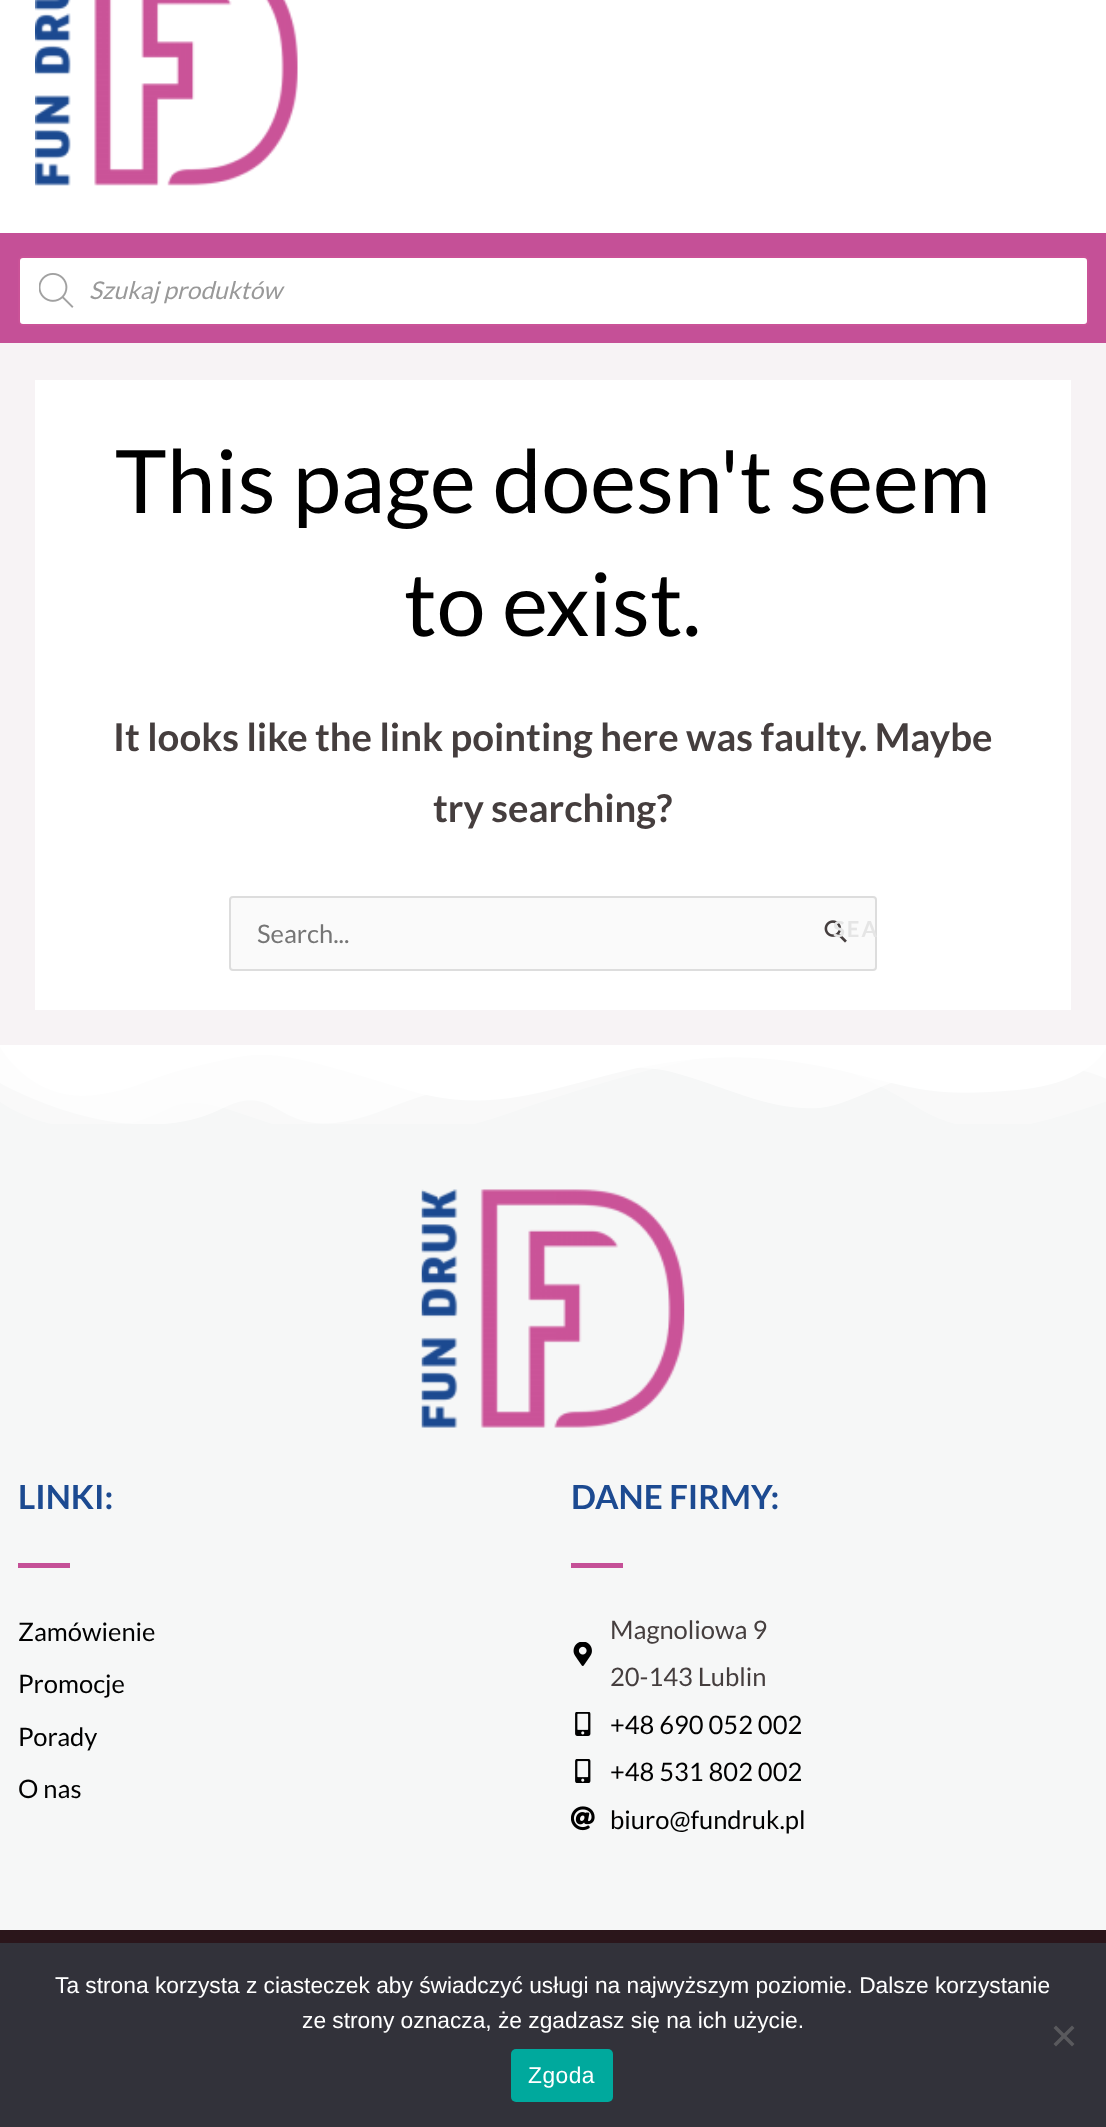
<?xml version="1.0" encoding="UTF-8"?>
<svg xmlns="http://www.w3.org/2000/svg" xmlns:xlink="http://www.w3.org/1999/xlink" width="1106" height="2127">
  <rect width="100%" height="100%" fill="#f7f3f5" />
  <rect width="1106" height="233" fill="#ffffff" />
  <rect y="233" width="1106" height="110" fill="#c55097" />
  <image x="35" y="0" width="263" height="186" xlink:href="image1.png" />
  <rect x="19" y="257" width="1069" height="68" rx="4" fill="#ffffff" stroke="#ca5398" stroke-width="2" />
  <image x="39" y="273" width="35" height="35" xlink:href="image2.png" />
  <rect x="35" y="380" width="1036" height="630" fill="#ffffff" />
  <rect x="230" y="897" width="646" height="73" rx="3" fill="#fafafa" stroke="#dddddd" stroke-width="2" />
  <image x="824" y="920" width="23" height="23" xlink:href="image3.png" />
  <rect y="1047" width="1106" height="883" fill="#f6f7f7" />
  <image x="0" y="1045" width="1106" height="79" xlink:href="image4.png" />
  <image x="421" y="1189" width="264" height="239" xlink:href="image5.png" />
  <rect x="18" y="1563" width="52" height="5" fill="#c55097" />
  <rect x="571" y="1563" width="52" height="5" fill="#c55097" />
  <image x="573" y="1642" width="19" height="24" xlink:href="image6.png" />
  <image x="575" y="1712" width="16" height="24" xlink:href="image7.png" />
  <image x="575" y="1759" width="16" height="24" xlink:href="image8.png" />
  <image x="571" y="1806" width="24" height="25" xlink:href="image9.png" />
  <rect y="1930" width="1106" height="13" fill="#2b161b" />
  <rect y="1943" width="1106" height="184" fill="#32323a" />
  <path d="M 1072 2025.5 l 2.5 2.5 l -18.5 18.5 l -2.5 -2.5 z" fill="#59595d" />
  <path d="M 1053.5 2028 l 2.5 -2.5 l 18.5 18.5 l -2.5 2.5 z" fill="#59595d" />
  <rect x="511" y="2049" width="102" height="53" rx="5" fill="#00a99d" />
  <text x="89" y="299" style="font-family: Lato; font-size: 24.5px; font-style: italic; fill: #999999">Szukaj produktów</text>
  <text x="115" y="513" style="font-family: Lato; font-size: 87.5px; fill: #000000">This page doesn't seem</text>
  <text x="404" y="636" style="font-family: Lato; font-size: 87.5px; fill: #000000">to exist.</text>
  <text x="113" y="751" style="font-family: Lato; font-size: 38.3px; font-weight: bold; fill: #453e3e">It looks like the link pointing here was faulty. Maybe</text>
  <text x="433" y="822" style="font-family: Lato; font-size: 38.3px; font-weight: bold; fill: #453e3e">try searching?</text>
  <text x="257" y="943" style="font-family: Lato; font-size: 25.5px; fill: #757575">Search...</text>
  <text x="833" y="937" style="font-family: Lato; font-size: 22px; font-weight: bold; letter-spacing: 2px; fill: #e5e5e5">SEA</text>
  <text x="18" y="1509" style="font-family: Lato; font-size: 33.25px; font-weight: bold; fill: #1c4a91">LINKI:</text>
  <text x="18" y="1641" style="font-family: Lato; font-size: 25.5px; fill: #000000">Zamówienie</text>
  <text x="18" y="1693" style="font-family: Lato; font-size: 25.5px; fill: #000000">Promocje</text>
  <text x="18" y="1746" style="font-family: Lato; font-size: 25.5px; fill: #000000">Porady</text>
  <text x="18" y="1798" style="font-family: Lato; font-size: 25.5px; fill: #000000">O nas</text>
  <text x="571" y="1509" style="font-family: Lato; font-size: 33.25px; font-weight: bold; fill: #1c4a91">DANE FIRMY:</text>
  <text x="610" y="1639" style="font-family: Lato; font-size: 25.5px; fill: #453e3e">Magnoliowa 9</text>
  <text x="610" y="1686" style="font-family: Lato; font-size: 25.5px; fill: #453e3e">20-143 Lublin</text>
  <text x="610" y="1734" style="font-family: Lato; font-size: 25.5px; fill: #000000">+48 690 052 002</text>
  <text x="610" y="1781" style="font-family: Lato; font-size: 25.5px; fill: #000000">+48 531 802 002</text>
  <text x="610" y="1829" style="font-family: Lato; font-size: 25.5px; fill: #000000">biuro@fundruk.pl</text>
  <text x="55" y="1993" style="font-family: Liberation Sans; font-size: 22.75px; fill: #ffffff">Ta strona korzysta z ciasteczek aby świadczyć usługi na najwyższym poziomie. Dalsze korzystanie</text>
  <text x="302" y="2028" style="font-family: Liberation Sans; font-size: 22.75px; fill: #ffffff">ze strony oznacza, że zgadzasz się na ich użycie.</text>
  <text x="528" y="2083" style="font-family: Liberation Sans; font-size: 22.75px; letter-spacing: 0.5px; fill: #ffffff">Zgoda</text>
</svg>
